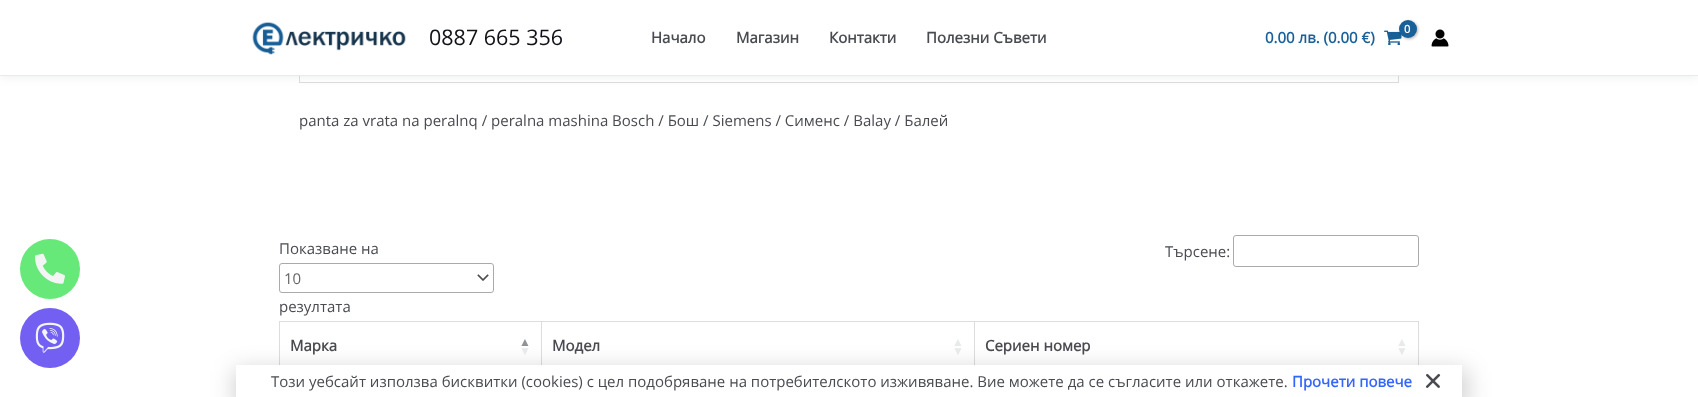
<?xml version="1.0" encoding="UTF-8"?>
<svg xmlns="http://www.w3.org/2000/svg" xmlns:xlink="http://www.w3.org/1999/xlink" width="1698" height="397">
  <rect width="100%" height="100%" fill="#ffffff" />
  <rect x="299" y="76" width="1" height="7" fill="#dddddd" />
  <rect x="1398" y="76" width="1" height="7" fill="#dddddd" />
  <rect x="300" y="82" width="1099" height="1" fill="#dddddd" />
  <rect y="2" width="1698" height="76" fill="#243242" fill-opacity="0.07" filter="blur(5px)" />
  <rect width="1698" height="75" fill="#ffffff" />
  <rect y="75" width="1698" height="1" fill="#eaeaea" />
  <image x="252" y="22" width="154" height="33" xlink:href="image1.png" />
  <image x="1384" y="30" width="18" height="15" xlink:href="image2.png" />
  <rect x="1400" y="21" width="18" height="18" rx="9" fill="#000000" fill-opacity="0.3" filter="blur(1.5px)" />
  <circle cx="1408" cy="29" r="9" fill="#1a6098" />
  <image x="1431" y="29" width="18" height="18" xlink:href="image3.png" />
  <circle cx="50" cy="269" r="30" fill="#67e979" />
  <image x="35" y="253" width="30" height="31" xlink:href="image4.png" />
  <circle cx="50" cy="338" r="30" fill="#7360f2" />
  <image x="35" y="322" width="30" height="31" xlink:href="image5.png" />
  <image x="477" y="274" width="12" height="7" xlink:href="image6.png" />
  <rect x="279.5" y="263.5" width="214" height="29" rx="2.5" fill="none" stroke="#aaaaaa" />
  <rect x="1233.5" y="235.5" width="185" height="31" rx="2.5" fill="none" stroke="#aaaaaa" />
  <rect x="279" y="321" width="1140" height="1" fill="#dddddd" />
  <path d="M 279 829 v -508 l 1 1 v 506 z" fill="#dddddd" />
  <path d="M 542 322 v 49 l -1 -1 v -48 z" fill="#dddddd" />
  <path d="M 975 322 v 49 l -1 -1 v -48 z" fill="#dddddd" />
  <path d="M 1419 322 v 49 l -1 -1 v -48 z" fill="#dddddd" />
  <rect x="235" y="370" width="1232" height="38" fill="#000000" fill-opacity="0.2" filter="blur(11.5px)" />
  <rect x="236" y="365" width="1226" height="32" fill="#ffffff" />
  <image x="1425" y="373" width="16" height="15" xlink:href="image7.png" />
  <text x="429" y="45" style="font-family: Open Sans; font-size: 21.5px; fill: #101218">0887 665 356</text>
  <text x="651" y="43" style="font-family: Open Sans; font-size: 15px; font-weight: bold; fill: #494b51">Начало</text>
  <text x="736" y="43" style="font-family: Open Sans; font-size: 15px; font-weight: bold; fill: #494b51">Магазин</text>
  <text x="829" y="43" style="font-family: Open Sans; font-size: 15px; font-weight: bold; fill: #494b51">Контакти</text>
  <text x="926" y="43" style="font-family: Open Sans; font-size: 15px; font-weight: bold; fill: #494b51">Полезни Съвети</text>
  <text x="1404" y="33" style="font-family: Open Sans; font-size: 11px; font-weight: bold; fill: #ffffff">0</text>
  <text x="1265" y="43" style="font-family: Open Sans; font-size: 15px; font-weight: bold; fill: #1a6098">0.00 лв. (0.00 €)</text>
  <text x="299" y="126" style="font-family: Open Sans; font-size: 15px; fill: #494b51">panta za vrata na peralnq / peralna mashina Bosch / Бош / Siemens / Сименс / Balay / Балей</text>
  <text x="279" y="254" style="font-family: Open Sans; font-size: 15px; fill: #494b51">Показване на</text>
  <text x="284" y="284" style="font-family: Open Sans; font-size: 15px; fill: #666666">10</text>
  <text x="279" y="312" style="font-family: Open Sans; font-size: 15px; fill: #494b51">резултата</text>
  <text x="1165" y="257" style="font-family: Open Sans; font-size: 15px; fill: #494b51">Търсене:</text>
  <text x="290" y="351" style="font-family: Open Sans; font-size: 15px; font-weight: bold; fill: #494b51">Марка</text>
  <text x="519" y="346" style="font-family: Liberation Sans; font-size: 12px; font-weight: bold; fill: #929397">▲</text>
  <text x="519" y="355" style="font-family: Liberation Sans; font-size: 12px; font-weight: bold; fill: #e8e9e9">▼</text>
  <text x="552" y="351" style="font-family: Open Sans; font-size: 15px; font-weight: bold; fill: #494b51">Модел</text>
  <text x="952" y="346" style="font-family: Liberation Sans; font-size: 12px; font-weight: bold; fill: #e8e9e9">▲</text>
  <text x="952" y="355" style="font-family: Liberation Sans; font-size: 12px; font-weight: bold; fill: #e8e9e9">▼</text>
  <text x="985" y="351" style="font-family: Open Sans; font-size: 15px; font-weight: bold; fill: #494b51">Сериен номер</text>
  <text x="1396" y="346" style="font-family: Liberation Sans; font-size: 12px; font-weight: bold; fill: #e8e9e9">▲</text>
  <text x="1396" y="355" style="font-family: Liberation Sans; font-size: 12px; font-weight: bold; fill: #e8e9e9">▼</text>
  <text x="271" y="387" style="font-family: Open Sans; font-size: 15px; fill: #494b51">Този уебсайт използва бисквитки (cookies) с цел подобряване на потребителското изживяване. Вие можете да се съгласите или откажете.</text>
  <text x="1292" y="387" style="font-family: Open Sans; font-size: 15px; font-weight: bold; fill: #3366ff">Прочети повече</text>
</svg>
